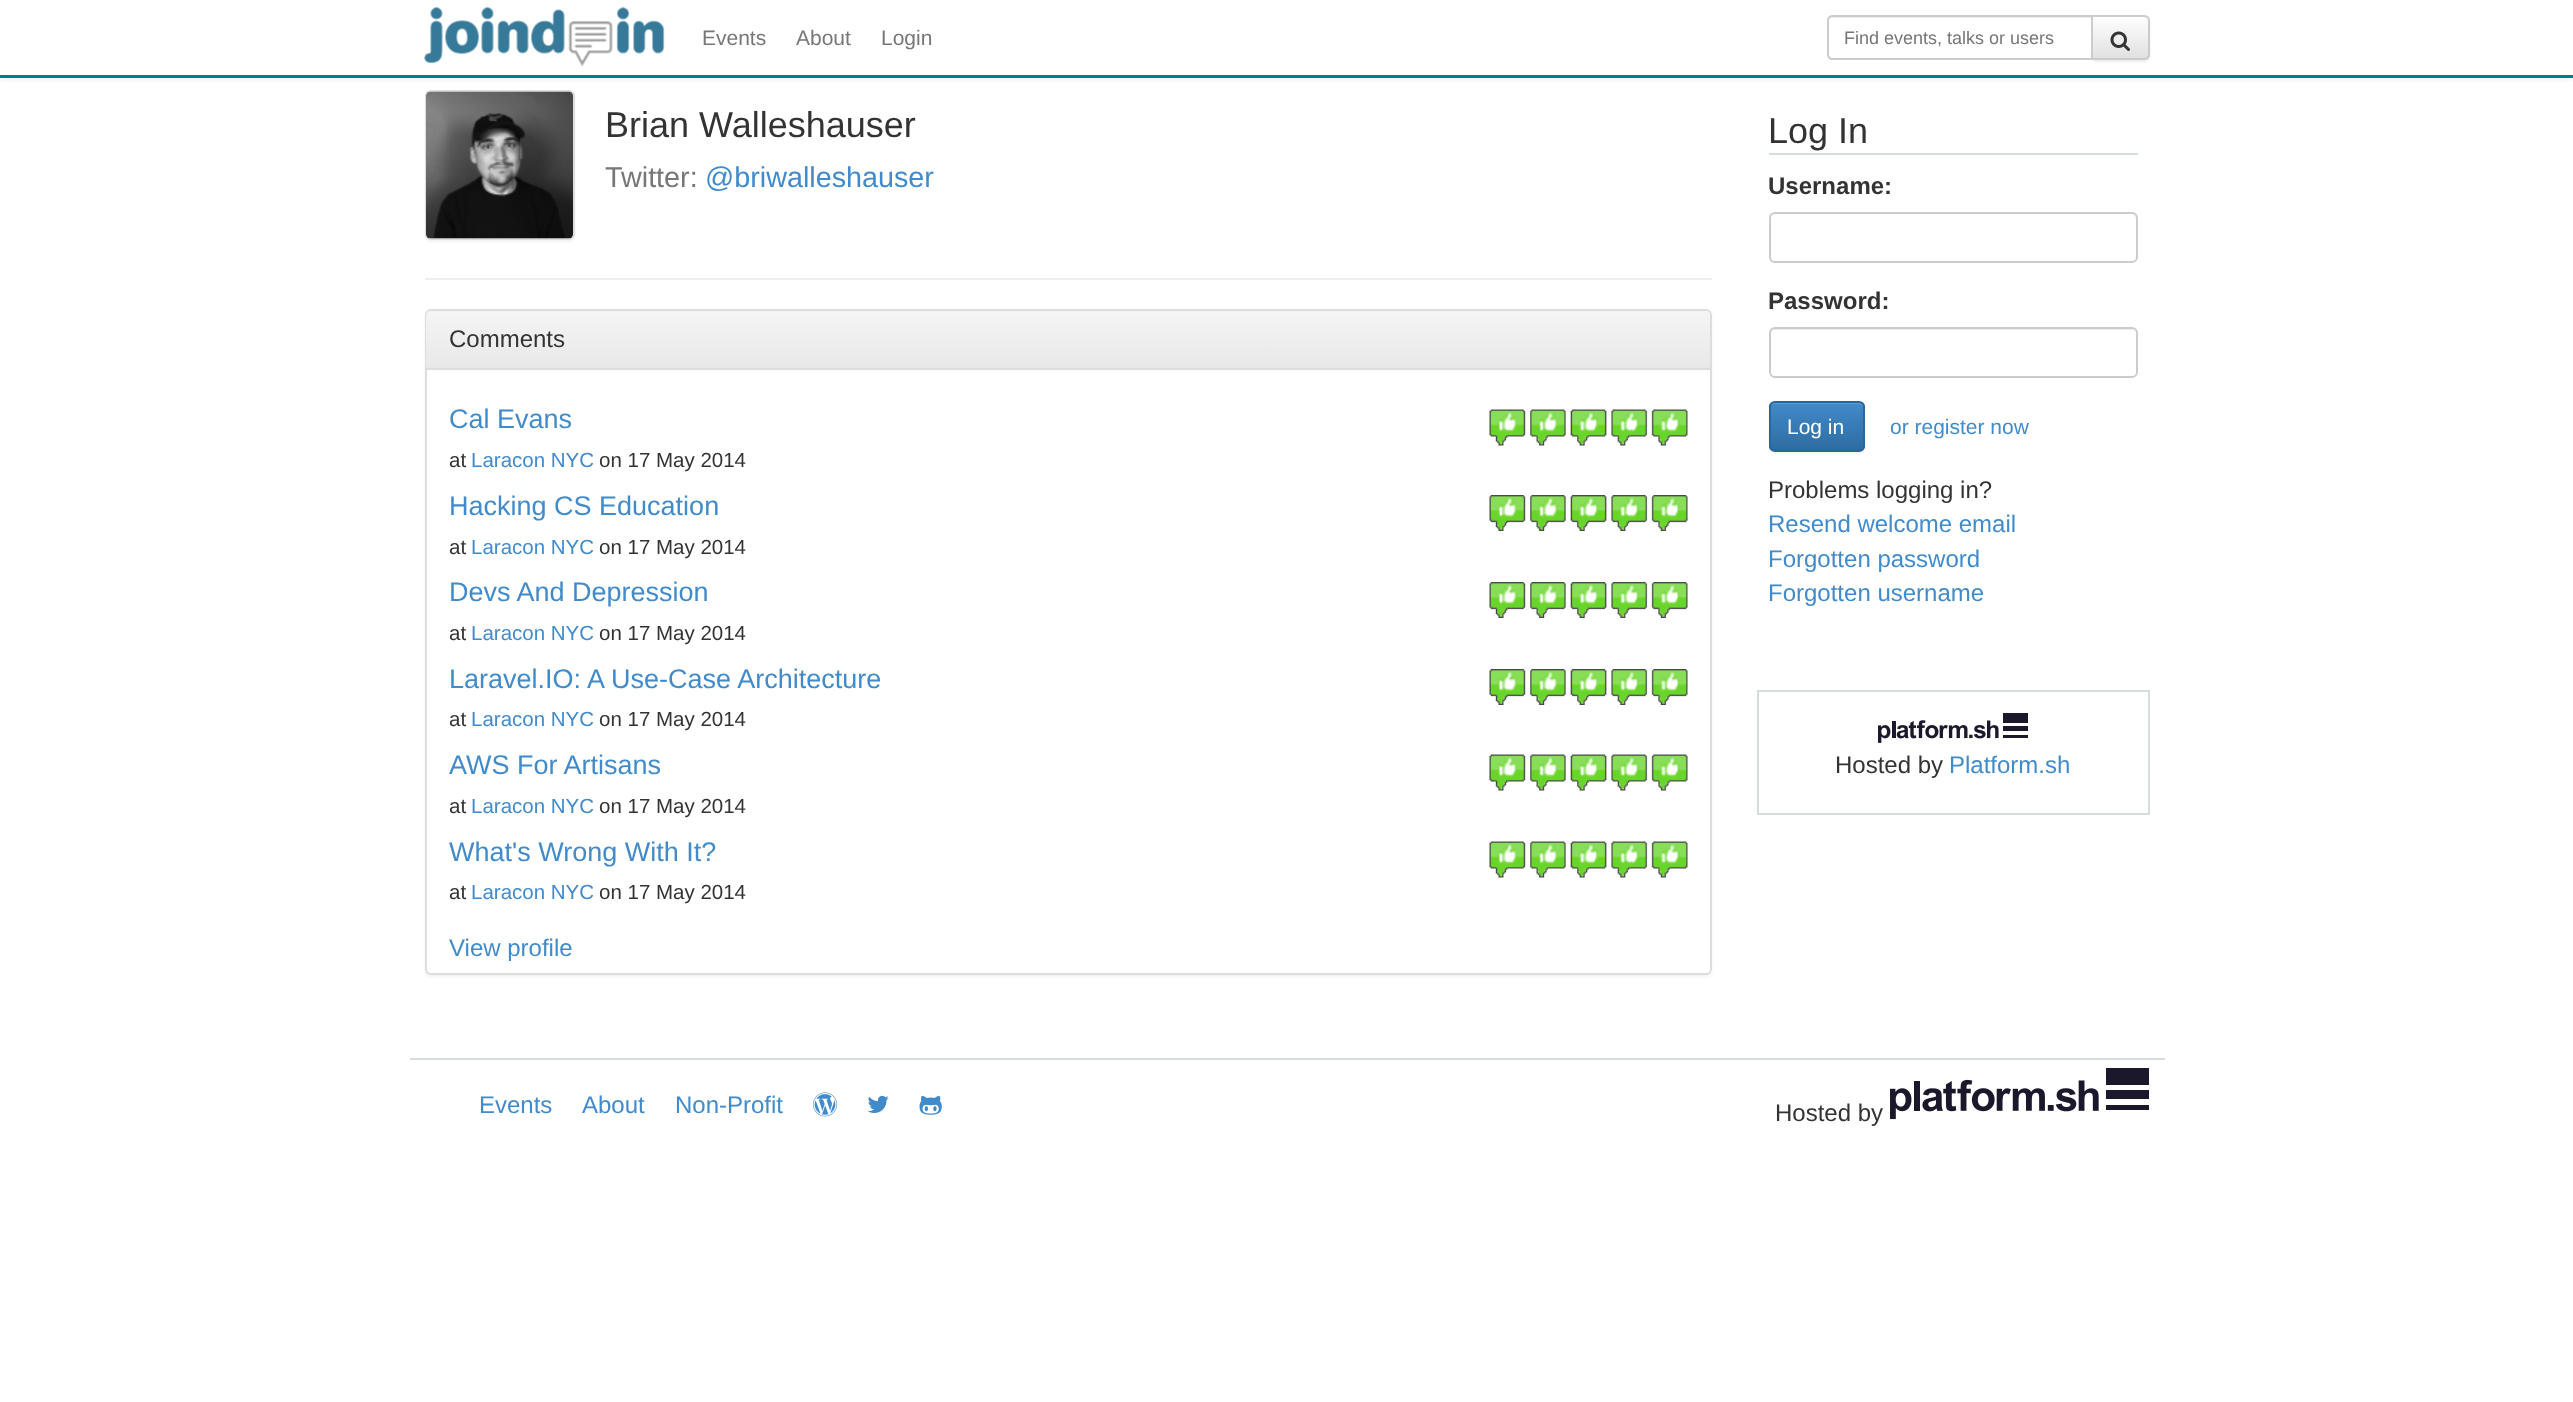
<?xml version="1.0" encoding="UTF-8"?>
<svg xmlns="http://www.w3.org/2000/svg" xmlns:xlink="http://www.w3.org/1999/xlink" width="2573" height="1402">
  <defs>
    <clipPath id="clip1"><rect x="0" y="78" width="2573" height="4" /></clipPath>
    <clipPath id="clip2"><path d="M 2091 15 h 53 c 3.5 0 6 2.5 6 6 v 33 c 0 3.5 -2.5 6 -6 6 h -53 z" /></clipPath>
    <linearGradient id="g1" gradientUnits="userSpaceOnUse" x1="2120" y1="16" x2="2120" y2="59"><stop offset="0" stop-color="#ffffff" /><stop offset="1" stop-color="#e0e0e0" /></linearGradient>
    <linearGradient id="g2" gradientUnits="userSpaceOnUse" x1="1068" y1="310" x2="1068" y2="368"><stop offset="0" stop-color="#f5f5f5" /><stop offset="1" stop-color="#e8e8e8" /></linearGradient>
    <clipPath id="clip3"><rect x="1769" y="401" width="96" height="51" rx="6" /></clipPath>
    <linearGradient id="g3" gradientUnits="userSpaceOnUse" x1="1817" y1="402" x2="1817" y2="450"><stop offset="0" stop-color="#428bca" /><stop offset="1" stop-color="#2d6ca2" /></linearGradient>
  </defs>
  <rect width="100%" height="100%" fill="#ffffff" />
  <rect x="425" y="92" width="150" height="150" rx="6" fill="#000000" fill-opacity="0.05" filter="blur(1px)" />
  <rect x="426" y="91" width="148" height="148" rx="5" fill="none" stroke="#dddddd" stroke-width="2" />
  <image x="426" y="91" width="147" height="148" xlink:href="image3.png" />
  <g clip-path="url(#clip1)">
    <rect y="2" width="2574" height="78" fill="#000000" fill-opacity="0.07" filter="blur(4px)" />
  </g>
  <rect y="75" width="2573" height="3" fill="#007b97" />
  <image x="424" y="7" width="241" height="60" xlink:href="image1.png" />
  <rect x="2091" y="17" width="59" height="45" rx="6" fill="#000000" fill-opacity="0.07" filter="blur(1px)" />
  <g clip-path="url(#clip2)">
    <rect x="2093" y="17" width="57" height="42" fill="url(#g1)" />
  </g>
  <path d="M 2092 16 h 52 c 3 0 5 2 5 5 v 33 c 0 3 -2 5 -5 5 h -52 z" fill="none" stroke="#cccccc" stroke-width="2" />
  <path d="M 1832 15 h 261 v 45 h -261 c -3 0 -5 -2 -5 -5 v -35 c 0 -3 2 -5 5 -5 z" fill="#ffffff" />
  <path d="M 1832 18 h 259 v -1 h -259 c -1 0 -2 1 -3 2 z" fill="#ececec" />
  <path d="M 1832 16 h 260 v 43 h -260 c -2 0 -4 -2 -4 -4 v -35 c 0 -2 2 -4 4 -4 z" fill="none" stroke="#cccccc" stroke-width="2" />
  <image x="2110" y="31" width="20" height="20" xlink:href="image2.png" />
  <rect x="425" y="278" width="1287" height="2" fill="#eeeeee" />
  <rect x="425" y="311" width="1287" height="666" rx="6" fill="#000000" fill-opacity="0.05" filter="blur(1.5px)" />
  <rect x="426" y="310" width="1285" height="664" rx="5" fill="#ffffff" stroke="#dddddd" stroke-width="2" />
  <path d="M 431 311 h 1274 c 3 0 5 2 5 5 v 52 h -1284 v -52 c 0 -3 2 -5 5 -5 z" fill="url(#g2)" />
  <rect x="426" y="368" width="1284" height="2" fill="#dddddd" />
  <image x="1489" y="409" width="199" height="37" xlink:href="image4.png" />
  <image x="1489" y="495" width="199" height="36" xlink:href="image5.png" />
  <image x="1489" y="582" width="199" height="36" xlink:href="image5.png" />
  <image x="1489" y="669" width="199" height="36" xlink:href="image5.png" />
  <image x="1489" y="754" width="199" height="37" xlink:href="image4.png" />
  <image x="1489" y="841" width="199" height="37" xlink:href="image4.png" />
  <rect x="1769" y="153" width="369" height="2" fill="#d7dcdf" />
  <path d="M 1774 214 h 358 c 2 0 4 3 4 5 v -1 c 0 -3 -2 -5 -5 -5 h -356 c -3 0 -5 2 -5 5 v 1 c 0 -2 2 -5 4 -5 z" fill="#ececec" />
  <rect x="1770" y="213" width="367" height="49" rx="5" fill="none" stroke="#cccccc" stroke-width="2" />
  <path d="M 1774 330 h 358 c 2 0 4 2 4 4 c 0 -3 -2 -5 -5 -5 h -356 c -3 0 -5 2 -5 5 c 0 -2 2 -4 4 -4 z" fill="#ececec" />
  <rect x="1770" y="328" width="367" height="49" rx="5" fill="none" stroke="#cccccc" stroke-width="2" />
  <rect x="1769" y="402" width="96" height="51" rx="6" fill="#000000" fill-opacity="0.07" filter="blur(1px)" />
  <g clip-path="url(#clip3)">
    <rect x="1769" y="402" width="96" height="48" fill="url(#g3)" />
  </g>
  <path d="M 1774 404 h 84 c 3 0 5 2 5 4 c 0 -9 -13 -6 -19 -6 h -55 c -6 0 -19 -3 -19 6 c 0 -2 2 -4 4 -4 z" fill="#5e9cd1" />
  <rect x="1770" y="402" width="94" height="49" rx="5" fill="none" stroke="#2b669a" stroke-width="2" />
  <rect x="1758" y="691" width="391" height="123" fill="none" stroke="#d7dcdf" stroke-width="2" />
  <image x="1878" y="713" width="150" height="30" xlink:href="image6.png" />
  <rect x="410" y="1058" width="1755" height="2" fill="#d7dcdf" />
  <image x="813" y="1092" width="24" height="25" xlink:href="image7.png" />
  <image x="867" y="1095" width="22" height="18" xlink:href="image8.png" />
  <image x="919" y="1095" width="23" height="20" xlink:href="image9.png" />
  <image x="1890" y="1068" width="259" height="52" xlink:href="image10.png" />
  <text x="702" y="45" style="font-family: Liberation Sans; font-size: 21px; fill: #777777">Events</text>
  <text x="796" y="45" style="font-family: Liberation Sans; font-size: 21px; fill: #777777">About</text>
  <text x="881" y="45" style="font-family: Liberation Sans; font-size: 21px; fill: #777777">Login</text>
  <text x="1844" y="44" style="font-family: Liberation Sans; font-size: 18px; fill: #777777">Find events, talks or users</text>
  <text x="605" y="137" style="font-family: Liberation Sans; font-size: 36px; fill: #333333">Brian Walleshauser</text>
  <text x="605" y="187" style="font-family: Liberation Sans; font-size: 28.75px; fill: #777777">Twitter:</text>
  <text x="705" y="187" style="font-family: Liberation Sans; font-size: 28.75px; fill: #428bca">@briwalleshauser</text>
  <text x="449" y="347" style="font-family: Liberation Sans; font-size: 24px; fill: #333333">Comments</text>
  <text x="449" y="428" style="font-family: Liberation Sans; font-size: 27px; fill: #428bca">Cal Evans</text>
  <text x="449" y="467" style="font-family: Liberation Sans; font-size: 20.5px; fill: #333333">at</text>
  <text x="471" y="467" style="font-family: Liberation Sans; font-size: 20.5px; fill: #428bca">Laracon NYC</text>
  <text x="599" y="467" style="font-family: Liberation Sans; font-size: 20.5px; fill: #333333">on 17 May 2014</text>
  <text x="449" y="515" style="font-family: Liberation Sans; font-size: 27px; fill: #428bca">Hacking CS Education</text>
  <text x="449" y="554" style="font-family: Liberation Sans; font-size: 20.5px; fill: #333333">at</text>
  <text x="471" y="554" style="font-family: Liberation Sans; font-size: 20.5px; fill: #428bca">Laracon NYC</text>
  <text x="599" y="554" style="font-family: Liberation Sans; font-size: 20.5px; fill: #333333">on 17 May 2014</text>
  <text x="449" y="601" style="font-family: Liberation Sans; font-size: 27px; fill: #428bca">Devs And Depression</text>
  <text x="449" y="640" style="font-family: Liberation Sans; font-size: 20.5px; fill: #333333">at</text>
  <text x="471" y="640" style="font-family: Liberation Sans; font-size: 20.5px; fill: #428bca">Laracon NYC</text>
  <text x="599" y="640" style="font-family: Liberation Sans; font-size: 20.5px; fill: #333333">on 17 May 2014</text>
  <text x="449" y="688" style="font-family: Liberation Sans; font-size: 27px; fill: #428bca">Laravel.IO: A Use-Case Architecture</text>
  <text x="449" y="726" style="font-family: Liberation Sans; font-size: 20.5px; fill: #333333">at</text>
  <text x="471" y="726" style="font-family: Liberation Sans; font-size: 20.5px; fill: #428bca">Laracon NYC</text>
  <text x="599" y="726" style="font-family: Liberation Sans; font-size: 20.5px; fill: #333333">on 17 May 2014</text>
  <text x="449" y="774" style="font-family: Liberation Sans; font-size: 27px; fill: #428bca">AWS For Artisans</text>
  <text x="449" y="813" style="font-family: Liberation Sans; font-size: 20.5px; fill: #333333">at</text>
  <text x="471" y="813" style="font-family: Liberation Sans; font-size: 20.5px; fill: #428bca">Laracon NYC</text>
  <text x="599" y="813" style="font-family: Liberation Sans; font-size: 20.5px; fill: #333333">on 17 May 2014</text>
  <text x="449" y="861" style="font-family: Liberation Sans; font-size: 27px; fill: #428bca">What's Wrong With It?</text>
  <text x="449" y="899" style="font-family: Liberation Sans; font-size: 20.5px; fill: #333333">at</text>
  <text x="471" y="899" style="font-family: Liberation Sans; font-size: 20.5px; fill: #428bca">Laracon NYC</text>
  <text x="599" y="899" style="font-family: Liberation Sans; font-size: 20.5px; fill: #333333">on 17 May 2014</text>
  <text x="449" y="956" style="font-family: Liberation Sans; font-size: 24px; fill: #428bca">View profile</text>
  <text x="1768" y="143" style="font-family: Liberation Sans; font-size: 36px; fill: #333333">Log In</text>
  <text x="1768" y="194" style="font-family: Liberation Sans; font-size: 24px; font-weight: bold; fill: #333333">Username:</text>
  <text x="1768" y="309" style="font-family: Liberation Sans; font-size: 24px; font-weight: bold; fill: #333333">Password:</text>
  <text x="1787" y="434" style="font-family: Liberation Sans; font-size: 21px; fill: #ffffff">Log in</text>
  <text x="1890" y="434" style="font-family: Liberation Sans; font-size: 21px; fill: #428bca">or register now</text>
  <text x="1768" y="498" style="font-family: Liberation Sans; font-size: 24px; fill: #333333">Problems logging in?</text>
  <text x="1768" y="532" style="font-family: Liberation Sans; font-size: 24px; fill: #428bca">Resend welcome email</text>
  <text x="1768" y="567" style="font-family: Liberation Sans; font-size: 24px; fill: #428bca">Forgotten password</text>
  <text x="1768" y="601" style="font-family: Liberation Sans; font-size: 24px; fill: #428bca">Forgotten username</text>
  <text x="1835" y="773" style="font-family: Liberation Sans; font-size: 24px; fill: #333333">Hosted by</text>
  <text x="1949" y="773" style="font-family: Liberation Sans; font-size: 24px; fill: #428bca">Platform.sh</text>
  <text x="479" y="1113" style="font-family: Liberation Sans; font-size: 24px; fill: #428bca">Events</text>
  <text x="582" y="1113" style="font-family: Liberation Sans; font-size: 24px; fill: #428bca">About</text>
  <text x="675" y="1113" style="font-family: Liberation Sans; font-size: 24px; fill: #428bca">Non-Profit</text>
  <text x="1775" y="1121" style="font-family: Liberation Sans; font-size: 24px; fill: #333333">Hosted by</text>
</svg>
